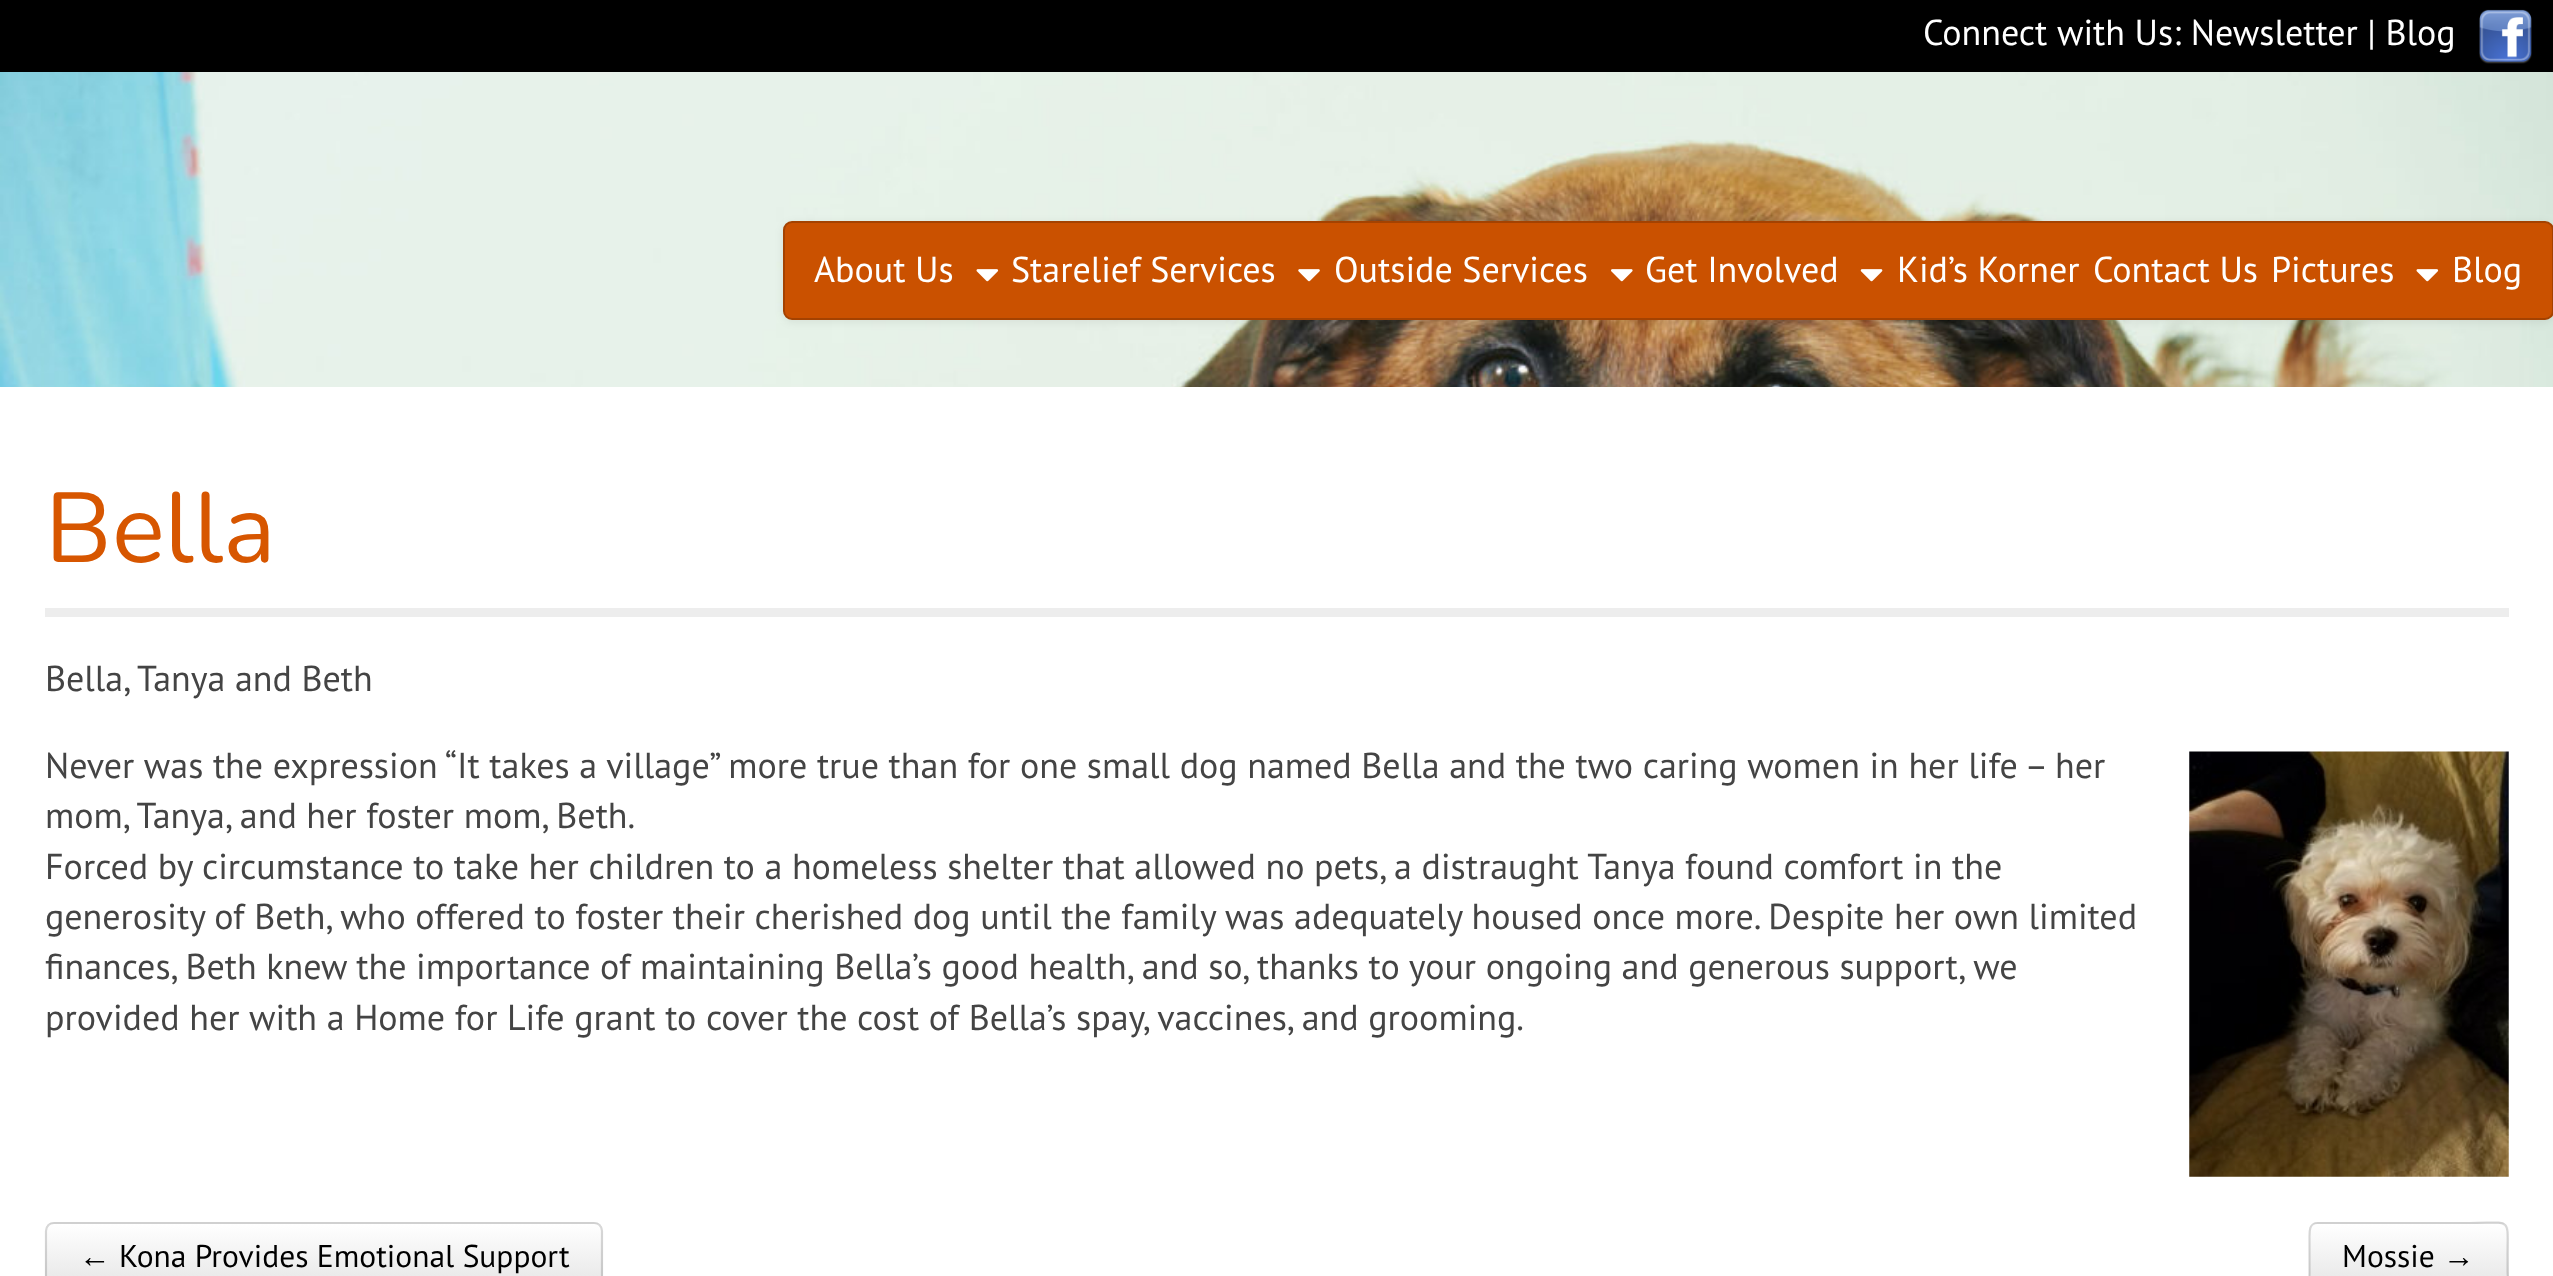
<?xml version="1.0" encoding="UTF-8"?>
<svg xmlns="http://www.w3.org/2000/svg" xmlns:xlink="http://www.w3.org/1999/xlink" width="2553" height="1276">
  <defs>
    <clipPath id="clip1"><rect x="45" y="1222" width="558" height="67" rx="9" /></clipPath>
    <linearGradient id="g1" gradientUnits="userSpaceOnUse" x1="324" y1="1224" x2="324" y2="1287"><stop offset="0" stop-color="#ffffff" /><stop offset="1" stop-color="#e6e6e6" /></linearGradient>
    <clipPath id="clip2"><rect x="2309" y="1222" width="200" height="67" rx="9" /></clipPath>
    <linearGradient id="g2" gradientUnits="userSpaceOnUse" x1="2409" y1="1224" x2="2409" y2="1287"><stop offset="0" stop-color="#ffffff" /><stop offset="1" stop-color="#e6e6e6" /></linearGradient>
  </defs>
  <rect width="100%" height="100%" fill="#ffffff" />
  <rect width="2553" height="72" fill="#000000" />
  <image x="2479" y="9" width="53" height="55" xlink:href="image1.png" />
  <image x="0" y="72" width="2553" height="315" xlink:href="image2.png" />
  <rect x="783" y="223" width="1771" height="99" rx="9" fill="#000000" fill-opacity="0.07" filter="blur(4.5px)" />
  <rect x="784" y="222" width="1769" height="97" rx="8" fill="#ca5100" stroke="#a44201" stroke-width="2" />
  <image x="976" y="269" width="23" height="13" xlink:href="image3.png" />
  <image x="1298" y="269" width="22" height="13" xlink:href="image4.png" />
  <image x="1611" y="269" width="22" height="13" xlink:href="image5.png" />
  <image x="1860" y="269" width="23" height="13" xlink:href="image6.png" />
  <image x="2416" y="269" width="23" height="13" xlink:href="image3.png" />
  <rect x="45" y="608" width="2464" height="9" fill="#ededed" />
  <image x="2189" y="751" width="320" height="426" xlink:href="image7.png" />
  <rect x="45" y="1222" width="558" height="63" rx="9" fill="#f5f5f5" />
  <g clip-path="url(#clip1)">
    <rect x="45" y="1224" width="558" height="52" fill="url(#g1)" />
  </g>
  <path d="M 48.5 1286 c -1.5 -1.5 -2.5 -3.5 -2.5 -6 v -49 c 0 -2.5 1 -4.5 2.5 -6 c 1.5 -1.5 3.5 -2 5.5 -2 h 540 c 2 0 4 0.5 5.5 2 c 1.5 1.5 2.5 3.5 2.5 6 v 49 c 0 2.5 -1 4.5 -2.5 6" fill="none" stroke="#000000" stroke-opacity="0.15" stroke-width="2.2" />
  <rect x="2309" y="1222" width="200" height="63" rx="9" fill="#f5f5f5" />
  <g clip-path="url(#clip2)">
    <rect x="2309" y="1224" width="200" height="52" fill="url(#g2)" />
  </g>
  <path d="M 2318 1226 h 152 c 9 0 34 -6 36 6 v 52 c 1 -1 1 -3 1 -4 v -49 c 0 -4 -3 -7 -7 -7 h -182 c -4 0 -7 3 -7 7 v 2 c 0 -4 3 -7 7 -7 z" fill="#ffffff" fill-opacity="0.2" />
  <path d="M 2312 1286 c -3.5 -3.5 -2.5 -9.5 -2.5 -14 v -33 c 0 -6 -1 -16 8 -16 h 152 c 43 0 38 -7 38 32.5 v 16.5 c 0 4.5 1.5 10.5 -2 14" fill="none" stroke="#000000" stroke-opacity="0.15" stroke-width="2.2" />
  <text x="1923" y="45" style="font-family: PT Sans; font-size: 36px; fill: #ffffff">Connect with Us: Newsletter | Blog</text>
  <text x="814" y="282" style="font-family: PT Sans; font-size: 36px; fill: #ffffff">About Us</text>
  <text x="1011" y="282" style="font-family: PT Sans; font-size: 36px; fill: #ffffff">Starelief Services</text>
  <text x="1334" y="282" style="font-family: PT Sans; font-size: 36px; fill: #ffffff">Outside Services</text>
  <text x="1645" y="282" style="font-family: PT Sans; font-size: 36px; fill: #ffffff">Get Involved</text>
  <text x="1897" y="282" style="font-family: PT Sans; font-size: 36px; fill: #ffffff">Kid’s Korner</text>
  <text x="2093" y="282" style="font-family: PT Sans; font-size: 36px; fill: #ffffff">Contact Us</text>
  <text x="2271" y="282" style="font-family: PT Sans; font-size: 36px; fill: #ffffff">Pictures</text>
  <text x="2452" y="282" style="font-family: PT Sans; font-size: 36px; fill: #ffffff">Blog</text>
  <text x="45" y="562" style="font-family: Nunito; font-size: 99px; font-weight: 200; fill: #d75600">Bella</text>
  <text x="45" y="691" style="font-family: PT Sans; font-size: 36px; fill: #444444">Bella, Tanya and Beth</text>
  <text x="45" y="778" style="font-family: PT Sans; font-size: 36px; fill: #444444">Never was the expression “It takes a village” more true than for one small dog named Bella and the two caring women in her life – her</text>
  <text x="45" y="828" style="font-family: PT Sans; font-size: 36px; fill: #444444">mom, Tanya, and her foster mom, Beth.</text>
  <text x="45" y="879" style="font-family: PT Sans; font-size: 36px; fill: #444444">Forced by circumstance to take her children to a homeless shelter that allowed no pets, a distraught Tanya found comfort in the</text>
  <text x="45" y="929" style="font-family: PT Sans; font-size: 36px; fill: #444444">generosity of Beth, who offered to foster their cherished dog until the family was adequately housed once more. Despite her own limited</text>
  <text x="45" y="979" style="font-family: PT Sans; font-size: 36px; fill: #444444">finances, Beth knew the importance of maintaining Bella’s good health, and so, thanks to your ongoing and generous support, we</text>
  <text x="45" y="1030" style="font-family: PT Sans; font-size: 36px; fill: #444444">provided her with a Home for Life grant to cover the cost of Bella’s spay, vaccines, and grooming.</text>
  <text x="79" y="1267" style="font-family: Liberation Sans; font-size: 31.5px; fill: #000000">←</text>
  <text x="119" y="1267" style="font-family: PT Sans; font-size: 31.5px; fill: #000000">Kona Provides Emotional Support</text>
  <text x="2342" y="1267" style="font-family: PT Sans; font-size: 31.5px; fill: #000000">Mossie</text>
  <text x="2443" y="1267" style="font-family: Liberation Sans; font-size: 31.5px; fill: #000000">→</text>
</svg>
